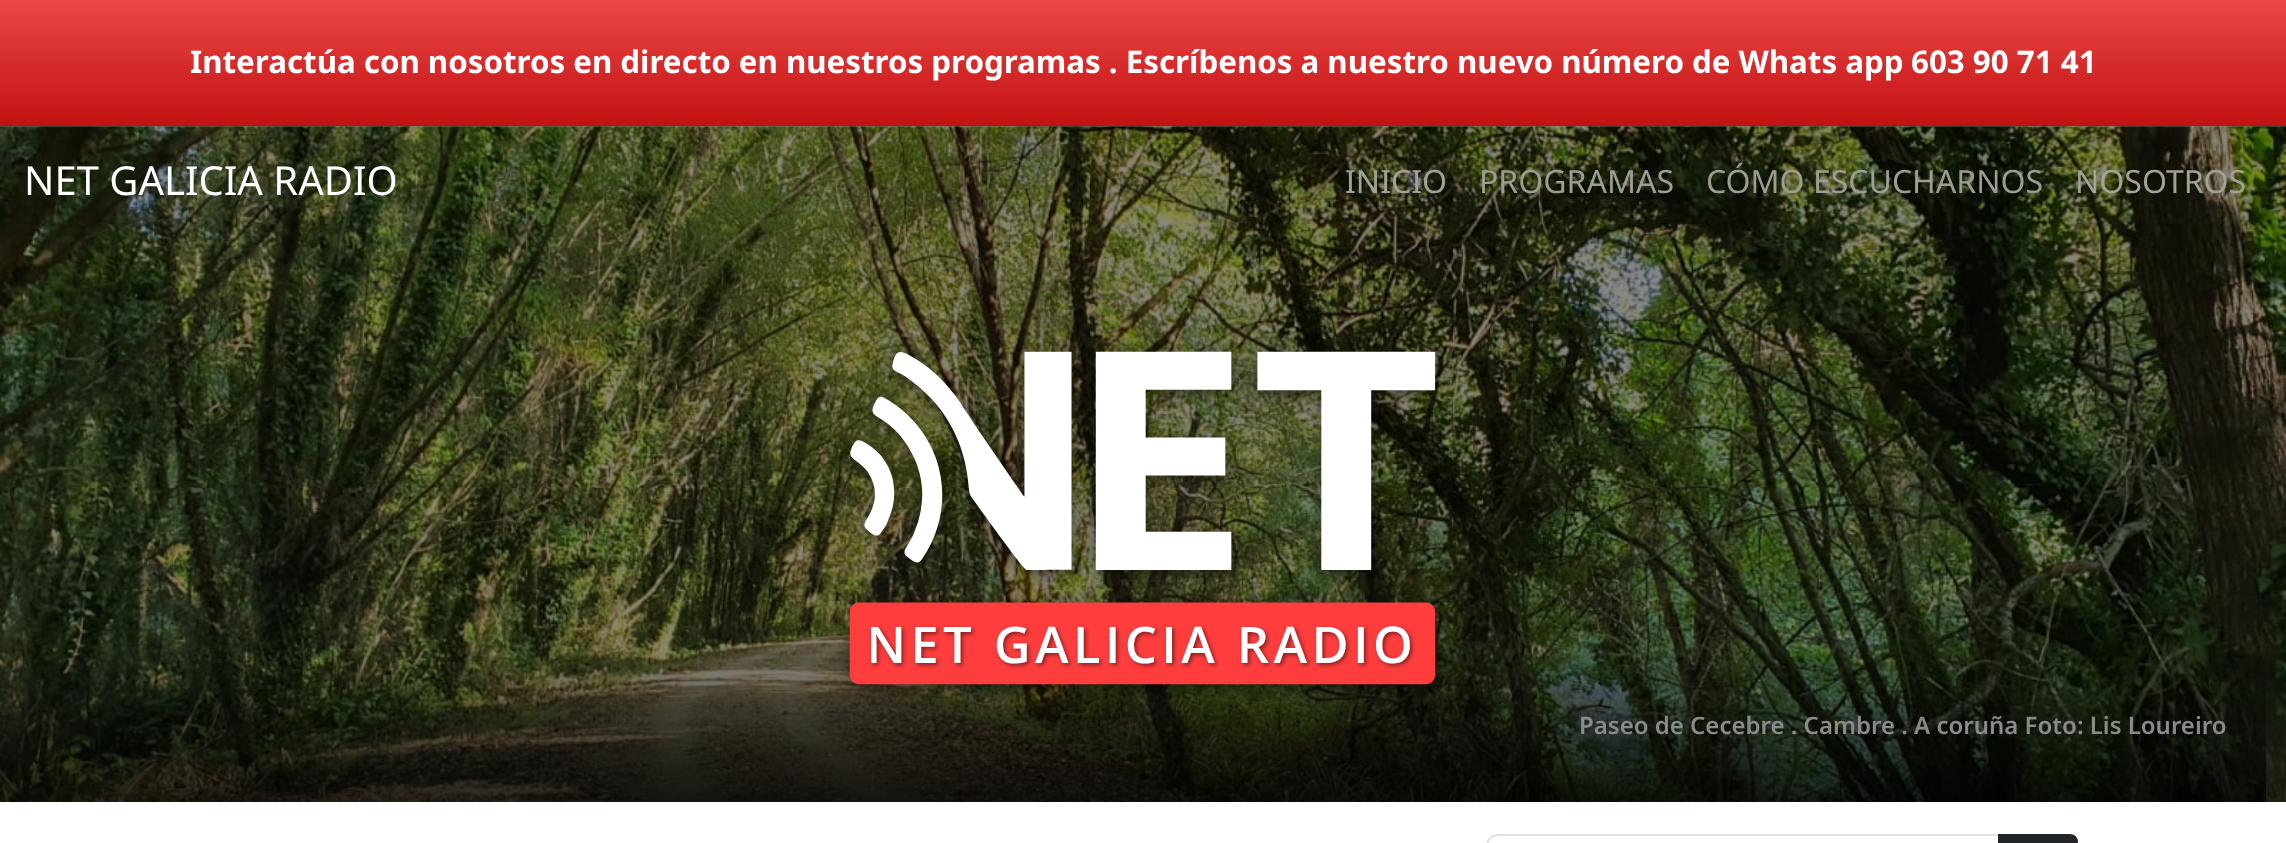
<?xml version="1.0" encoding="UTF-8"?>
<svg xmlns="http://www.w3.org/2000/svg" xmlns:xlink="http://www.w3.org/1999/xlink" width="2286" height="843">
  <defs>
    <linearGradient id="g1" gradientUnits="userSpaceOnUse" x1="1143" y1="0" x2="1143" y2="126"><stop offset="0" stop-color="#ec4747" /><stop offset="1" stop-color="#c21111" /></linearGradient>
  </defs>
  <rect width="100%" height="100%" fill="#ffffff" />
  <rect y="126" width="2286" height="2" fill="#8a8a8a" />
  <rect width="2286" height="126" fill="url(#g1)" />
  <image x="0" y="126" width="2286" height="676" xlink:href="image2.png" />
  <image x="838" y="344" width="609" height="354" xlink:href="image1.png" />
  <path d="M 1498 835 h 501 v 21 h -501 c -6 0 -11 -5 -11 -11 v 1 c 0 -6 5 -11 11 -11 z" fill="none" stroke="#dee2e6" stroke-width="2" />
  <path d="M 1999 835 h 71 c 4 0 7 3 7 7 v 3 c 0 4 -3 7 -7 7 h -71 z" fill="#212529" stroke="#212529" stroke-width="2" />
  <text x="190" y="73" word-spacing="-0.1" style="font-family: Noto Sans; font-size: 31.3px; font-weight: bold; fill: #ffffff">Interactúa con nosotros en directo en nuestros programas . Escríbenos a nuestro nuevo número de Whats app</text>
  <text x="1911" y="73" style="font-family: Noto Sans; font-size: 31.3px; font-weight: bold; fill: #ffffff">603 90 71 41</text>
  <text x="24" y="195" style="font-family: Noto Sans; font-size: 40px; fill: #ffffff">NET GALICIA RADIO</text>
  <text x="1345" y="193" style="font-family: Noto Sans; font-size: 32px; fill: #a2a299">INICIO</text>
  <text x="1479" y="193" style="font-family: Noto Sans; font-size: 32px; fill: #9c9e94">PROGRAMAS</text>
  <text x="1706" y="193" style="font-family: Noto Sans; font-size: 32px; fill: #9c9e94">CÓMO ESCUCHARNOS</text>
  <text x="2075" y="193" style="font-family: Noto Sans; font-size: 32px; fill: #a2a299">NOSOTROS</text>
  <text x="1579" y="734" style="font-family: Noto Sans; font-size: 24px; font-weight: 600; fill: #8a8a8a">Paseo de Cecebre . Cambre . A coruña Foto: Lis Loureiro</text>
</svg>
